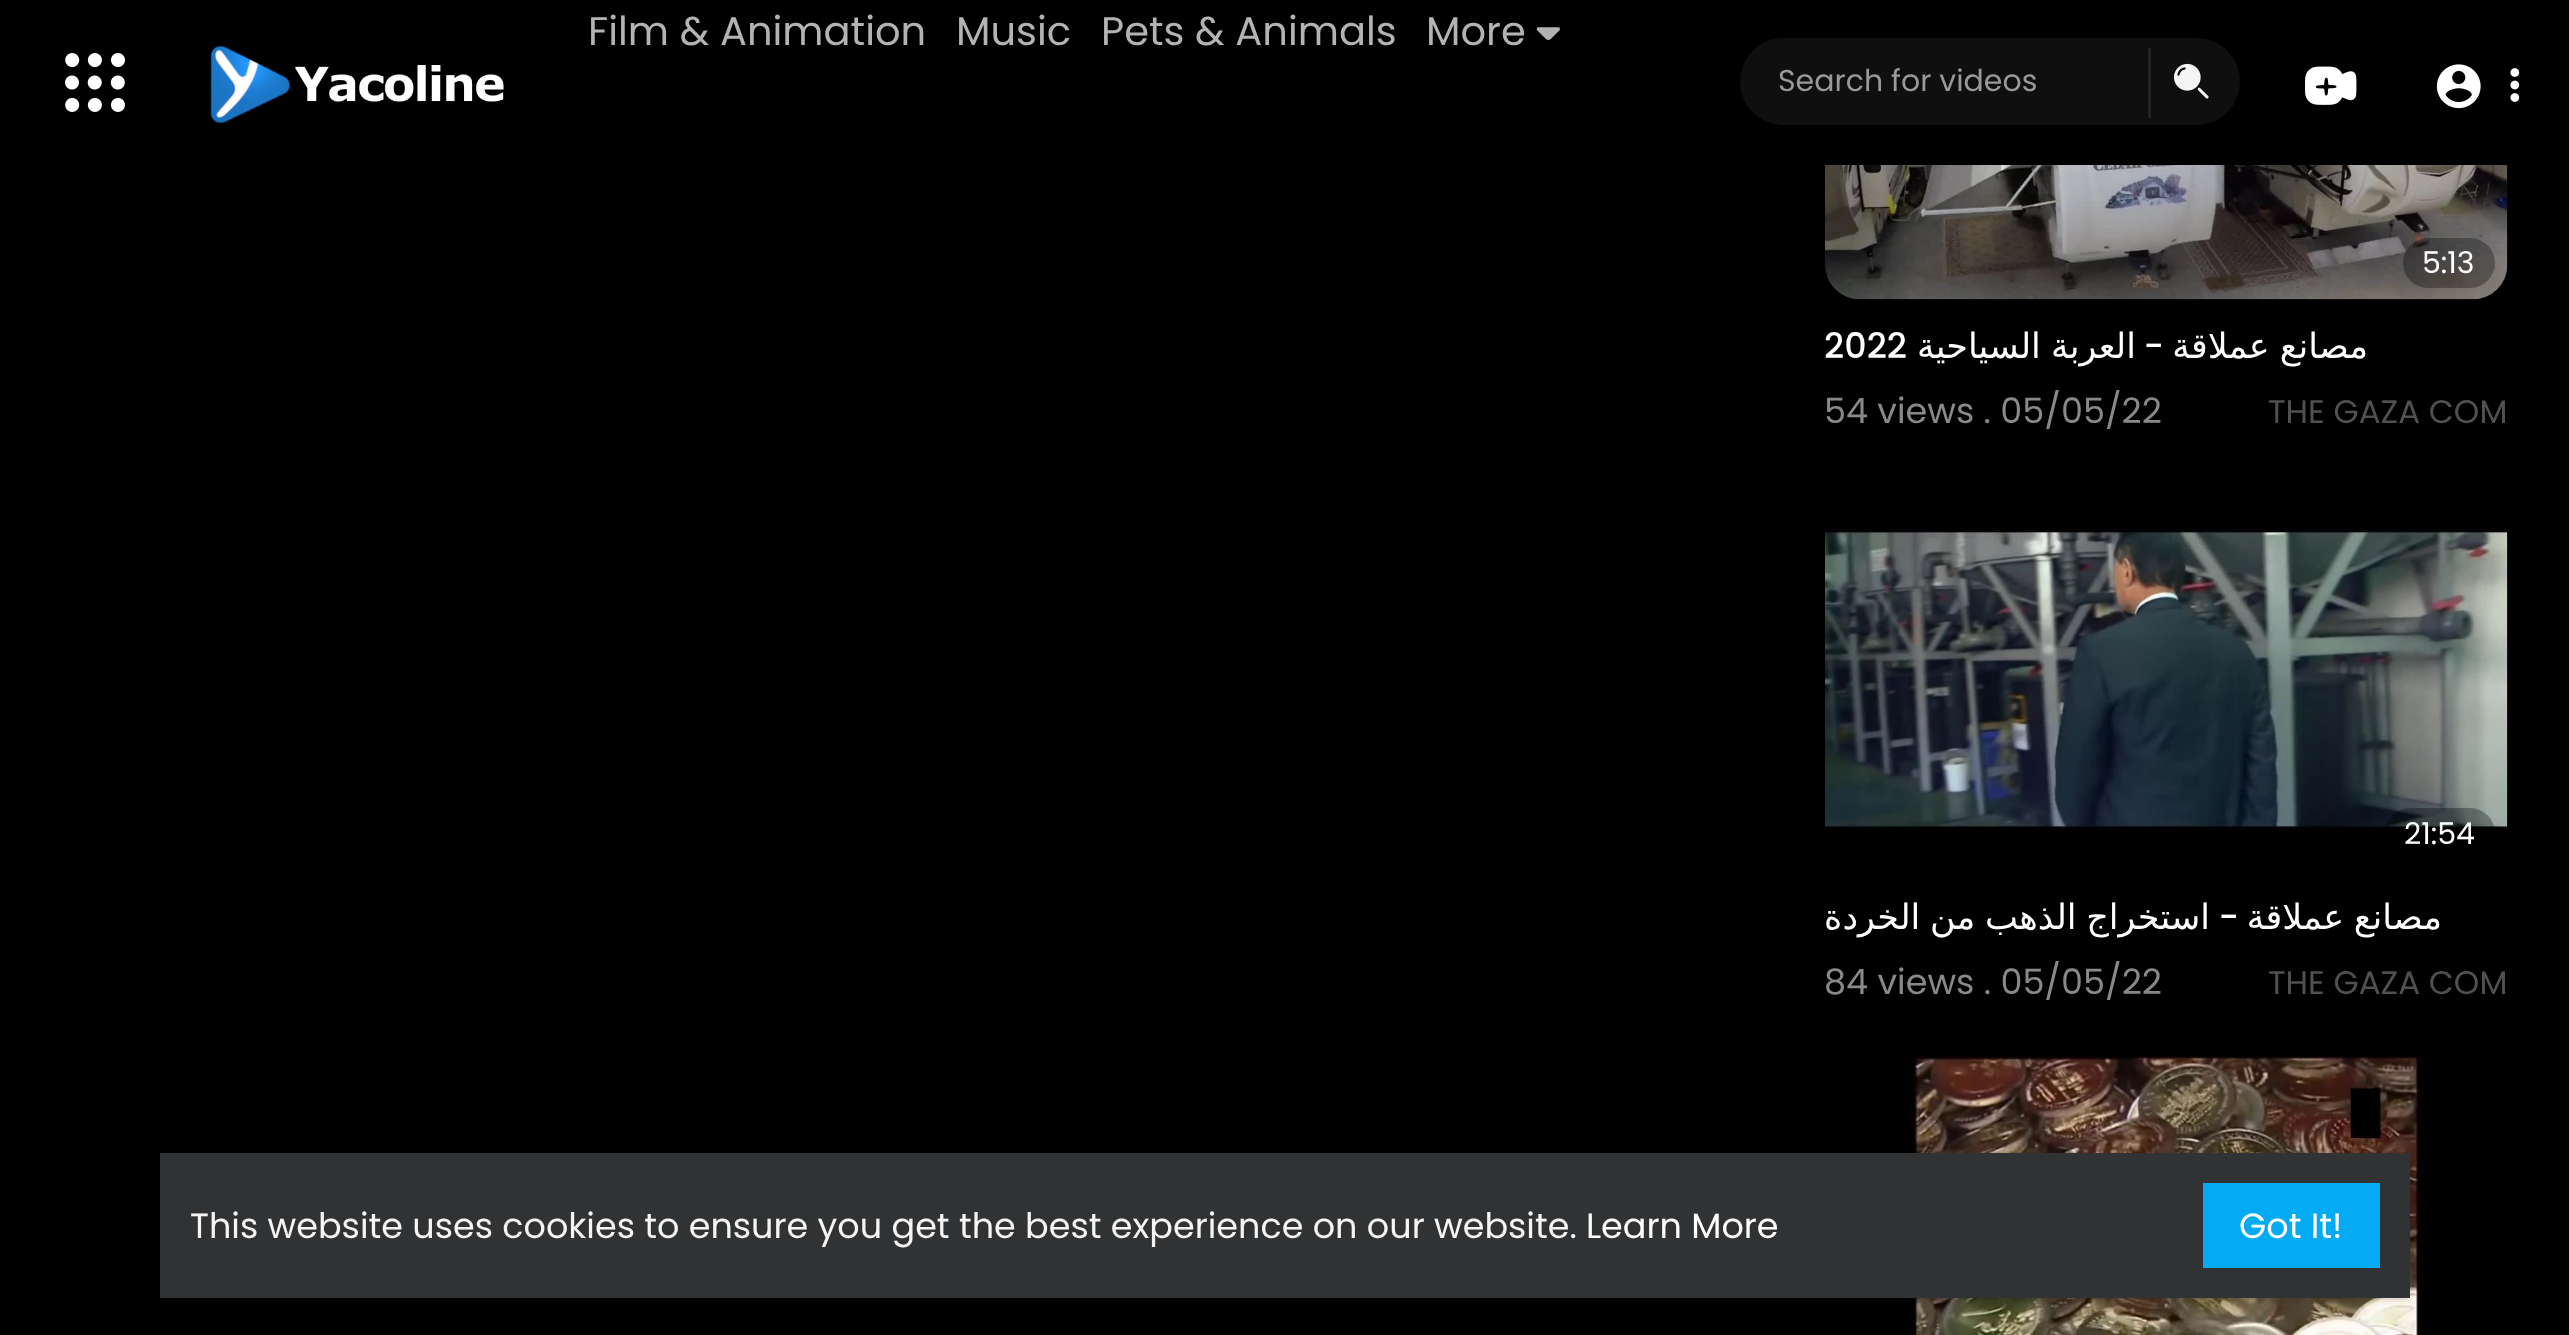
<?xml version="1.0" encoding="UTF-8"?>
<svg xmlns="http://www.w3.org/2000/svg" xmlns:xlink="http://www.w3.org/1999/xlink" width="2569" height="1335">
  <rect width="100%" height="100%" fill="#000000" />
  <image x="1536" y="27" width="24" height="13" xlink:href="image1.png" />
  <image x="65" y="53" width="60" height="59" xlink:href="image2.png" />
  <image x="210" y="45" width="294" height="79" xlink:href="image3.png" />
  <rect x="1740" y="38" width="500" height="87" rx="43.5" fill="#0f0f0f" />
  <rect x="2148" y="48" width="3" height="70" fill="#232323" />
  <image x="2173" y="63" width="36" height="36" xlink:href="image4.png" />
  <image x="2305" y="66" width="52" height="39" xlink:href="image5.png" />
  <image x="2436" y="64" width="45" height="45" xlink:href="image6.png" />
  <image x="2510" y="68" width="10" height="34" xlink:href="image7.png" />
  <image x="1825" y="165" width="683" height="135" xlink:href="image8.png" />
  <rect x="2403" y="238" width="92" height="50" rx="25" fill="#000000" fill-opacity="0.3" />
  <image x="1825" y="528" width="683" height="301" xlink:href="image9.png" />
  <rect x="2385" y="808" width="110" height="50" rx="25" fill="#000000" fill-opacity="0.3" />
  <image x="1907" y="1057" width="516" height="278" xlink:href="image10.png" />
  <rect x="160" y="1155" width="2250" height="145" fill="#000000" fill-opacity="0.06" filter="blur(2.5px)" />
  <rect x="160" y="1155" width="2250" height="145" fill="#000000" fill-opacity="0.1" filter="blur(4px)" />
  <rect x="160" y="1153" width="2250" height="145" fill="#303233" />
  <rect x="2203" y="1183" width="177" height="85" fill="#04abf2" />
  <text x="588" y="45" style="font-family: Poppins; font-size: 40px; fill: #b3b3b3">Film &amp; Animation</text>
  <text x="956" y="45" style="font-family: Poppins; font-size: 40px; fill: #b3b3b3">Music</text>
  <text x="1101" y="45" style="font-family: Poppins; font-size: 40px; fill: #b3b3b3">Pets &amp; Animals</text>
  <text x="1426" y="45" style="font-family: Poppins; font-size: 40px; fill: #b3b3b3">More</text>
  <text x="1778" y="91" style="font-family: Poppins; font-size: 30px; fill: #999999">Search for videos</text>
  <text x="2422" y="273" style="font-family: Poppins; font-size: 30px; fill: #ffffff">5:13</text>
  <text x="1824" y="358" style="font-family: Poppins; font-size: 35px; font-weight: 500; fill: #ffffff">2022</text>
  <text x="2136" y="358" word-spacing="-1" style="font-family: DejaVu Sans; font-size: 35px; direction: rtl; fill: #ffffff">العربة السياحية</text>
  <text x="2164" y="358" style="font-family: Poppins; font-size: 35px; font-weight: 500; direction: rtl; fill: #ffffff">-</text>
  <text x="2368" y="358" word-spacing="-1" style="font-family: DejaVu Sans; font-size: 35px; direction: rtl; fill: #ffffff">مصانع عملاقة</text>
  <text x="1824" y="423" style="font-family: Poppins; font-size: 35px; fill: #898989">54 views . 05/05/22</text>
  <text x="2268" y="423" style="font-family: Poppins; font-size: 32.5px; fill: #505050">THE GAZA COM</text>
  <text x="2404" y="844" style="font-family: Poppins; font-size: 30px; fill: #ffffff">21:54</text>
  <text x="2210" y="929" word-spacing="-1.5" style="font-family: DejaVu Sans; font-size: 35px; direction: rtl; fill: #ffffff">استخراج الذهب من الخردة</text>
  <text x="2239" y="929" style="font-family: Poppins; font-size: 35px; font-weight: 500; direction: rtl; fill: #ffffff">-</text>
  <text x="2442" y="929" word-spacing="-1.5" style="font-family: DejaVu Sans; font-size: 35px; direction: rtl; fill: #ffffff">مصانع عملاقة</text>
  <text x="1824" y="994" style="font-family: Poppins; font-size: 35px; fill: #898989">84 views . 05/05/22</text>
  <text x="2268" y="994" style="font-family: Poppins; font-size: 32.5px; fill: #505050">THE GAZA COM</text>
  <text x="190" y="1238" style="font-family: Poppins; font-size: 35px; fill: #f5f5f5">This website uses cookies to ensure you get the best experience on our website.</text>
  <text x="1586" y="1238" style="font-family: Poppins; font-size: 35px; fill: #ffffff">Learn More</text>
  <text x="2239" y="1238" style="font-family: Poppins; font-size: 35px; fill: #ffffff">Got It!</text>
</svg>
